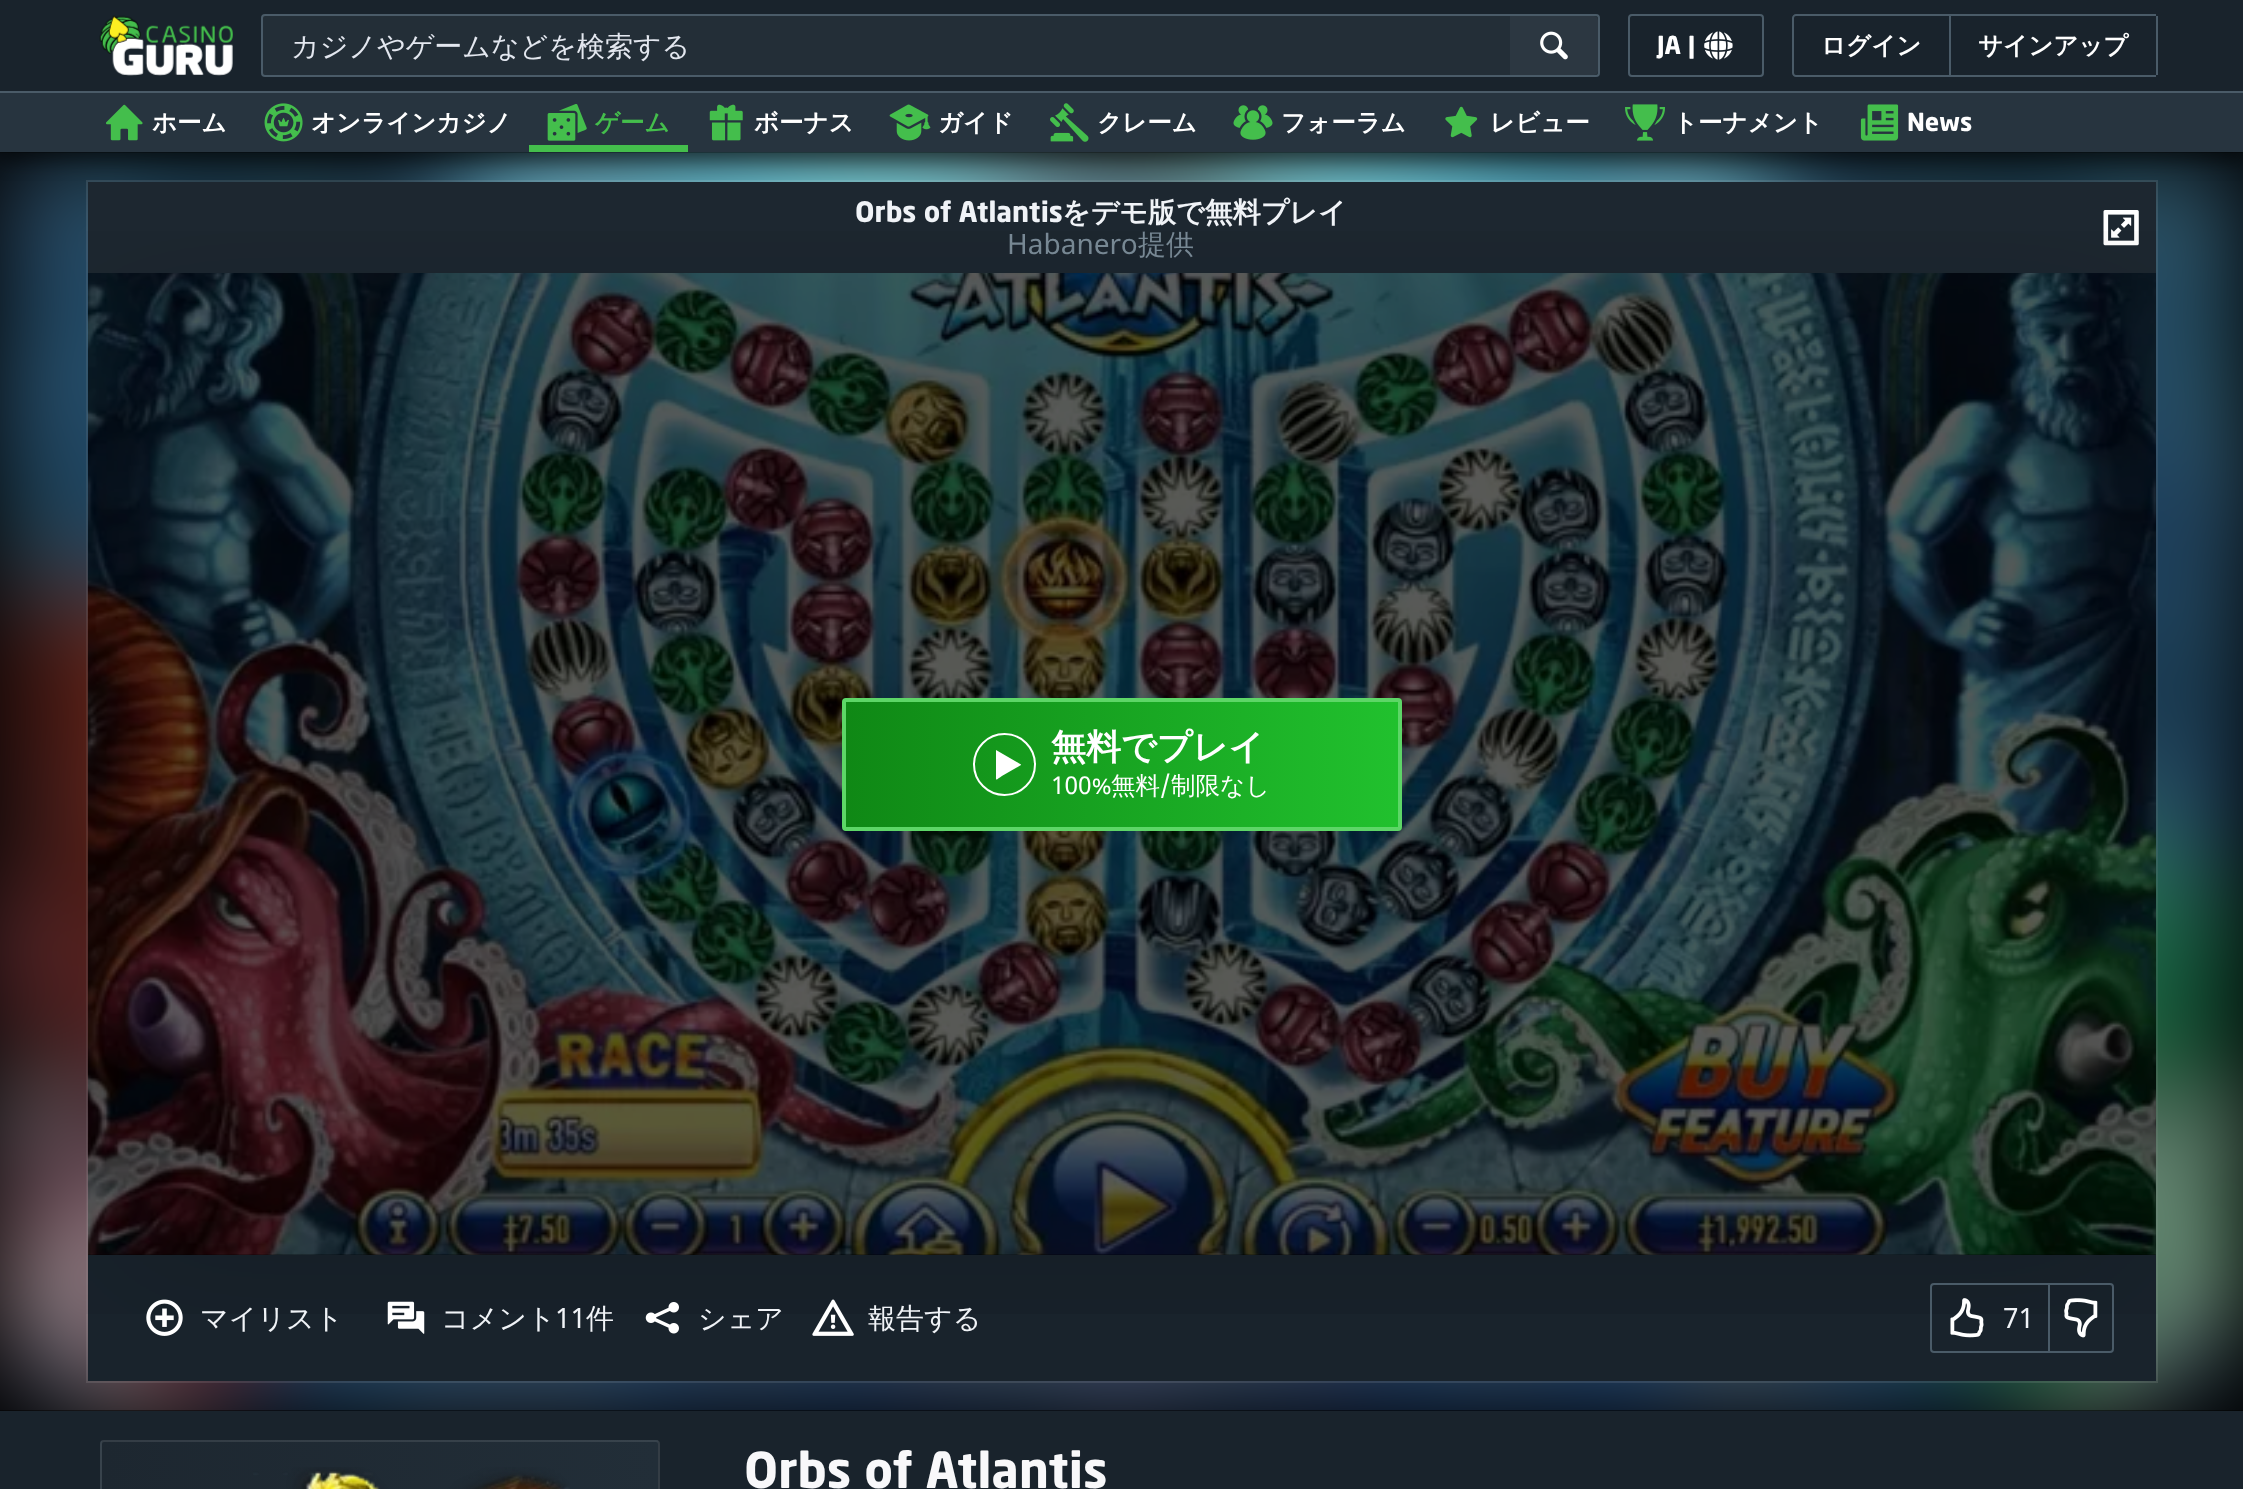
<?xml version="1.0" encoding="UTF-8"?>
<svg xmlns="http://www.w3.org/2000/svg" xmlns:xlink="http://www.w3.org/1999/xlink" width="2243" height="1489">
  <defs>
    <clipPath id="clip1"><rect x="100" y="1440" width="560" height="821" rx="4" /></clipPath>
    <linearGradient id="g1" gradientUnits="userSpaceOnUse" x1="102" y1="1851" x2="-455" y2="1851"><stop offset="0" stop-color="#222e38" /><stop offset="1" stop-color="#1d2730" /></linearGradient>
    <linearGradient id="g2" gradientUnits="userSpaceOnUse" x1="658" y1="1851" x2="101" y2="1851"><stop offset="0" stop-color="#222e38" /><stop offset="1" stop-color="#1d2730" /></linearGradient>
    <linearGradient id="g3" gradientUnits="userSpaceOnUse" x1="1215" y1="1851" x2="658" y2="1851"><stop offset="0" stop-color="#222e38" /><stop offset="1" stop-color="#1d2730" /></linearGradient>
    <linearGradient id="g4" gradientUnits="userSpaceOnUse" x1="1398" y1="765" x2="845" y2="765"><stop offset="0" stop-color="#21c12e" /><stop offset="1" stop-color="#0f8815" /></linearGradient>
  </defs>
  <rect width="100%" height="100%" fill="#000000" />
  <image x="0" y="152" width="2243" height="1259" xlink:href="image14.png" />
  <rect x="87" y="181" width="2070" height="1201" fill="none" stroke="#ffffff" stroke-opacity="0.1" stroke-width="2" />
  <rect x="88" y="182" width="2068" height="91" fill="#1d2730" />
  <rect y="9" width="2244" height="152" fill="#000000" fill-opacity="0.45" filter="blur(9px)" />
  <rect width="2243" height="91" fill="#19232c" />
  <image x="99" y="15" width="134" height="61" xlink:href="image1.png" />
  <rect x="262" y="15" width="1337" height="61" rx="3" fill="#232e37" stroke="#4a5b68" stroke-width="2" />
  <path d="M 1510 16 h 84 c 2 0 4 2 4 4 v 51 c 0 2 -2 4 -4 4 h -84 z" fill="#2c3741" />
  <image x="1540" y="31" width="28" height="29" xlink:href="image2.png" />
  <rect x="1629" y="15" width="134" height="61" rx="3" fill="none" stroke="#4a5b68" stroke-width="2" />
  <image x="1704" y="31" width="29" height="29" xlink:href="image3.png" />
  <path d="M 1796 15 h 154 v 61 h -154 c -1.5 0 -3 -1.5 -3 -3 v -55 c 0 -1.5 1.5 -3 3 -3 z" fill="none" stroke="#4a5b68" stroke-width="2" />
  <rect x="1951" y="14" width="205" height="2" fill="#4a5b68" />
  <rect x="2156" y="16" width="2" height="59" fill="#4a5b68" />
  <rect x="1951" y="75" width="205" height="2" fill="#4a5b68" />
  <rect y="93" width="2243" height="59" fill="#27343f" />
  <image x="106" y="104" width="37" height="37" xlink:href="image4.png" />
  <image x="264" y="103" width="39" height="39" xlink:href="image5.png" />
  <image x="547" y="104" width="40" height="37" xlink:href="image6.png" />
  <rect x="529" y="145" width="159" height="7" fill="#44be4c" />
  <image x="709" y="104" width="34" height="37" xlink:href="image7.png" />
  <image x="889" y="104" width="42" height="37" xlink:href="image8.png" />
  <image x="1050" y="103" width="39" height="39" xlink:href="image9.png" />
  <image x="1233" y="105" width="40" height="35" xlink:href="image10.png" />
  <image x="1445" y="106" width="33" height="32" xlink:href="image11.png" />
  <image x="1625" y="104" width="40" height="37" xlink:href="image12.png" />
  <image x="1860" y="104" width="39" height="37" xlink:href="image13.png" />
  <rect y="91" width="2243" height="2" fill="#4a5b68" />
  <image x="2103" y="210" width="36" height="36" xlink:href="image15.png" />
  <rect x="88" y="273" width="2068" height="982" fill="#000000" />
  <rect x="88" y="1255" width="2068" height="126" fill="#19232c" />
  <rect y="1411" width="2243" height="78" fill="#19232c" />
  <g clip-path="url(#clip1)">
    <rect x="100" y="1440" width="2" height="49" fill="url(#g1)" />
  </g>
  <rect x="102" y="1440" width="556" height="49" fill="url(#g2)" />
  <g clip-path="url(#clip1)">
    <rect x="658" y="1440" width="2" height="49" fill="url(#g3)" />
  </g>
  <rect x="101" y="1441" width="558" height="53" rx="3" fill="none" stroke="#ffffff" stroke-opacity="0.1" stroke-width="2" />
  <image x="253" y="1467" width="317" height="22" xlink:href="image23.png" />
  <text x="291" y="56" style="font-family: WenQuanYi Zen Hei; font-size: 28px; font-weight: 500; fill: #e3e7ef">カジノやゲームなどを検索する</text>
  <text x="1657" y="54" style="font-family: 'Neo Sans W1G'; font-size: 24.5px; font-weight: bold; fill: #ffffff">JA</text>
  <text x="1688" y="54" style="font-family: 'Neo Sans W1G'; font-size: 24.5px; font-weight: bold; fill: #ffffff">|</text>
  <text x="1821" y="54" style="font-family: WenQuanYi Zen Hei; font-size: 24.5px; font-weight: bold; fill: #ffffff">ログイン</text>
  <text x="1978" y="54" style="font-family: WenQuanYi Zen Hei; font-size: 24.5px; font-weight: bold; fill: #ffffff">サインアップ</text>
  <text x="152" y="131" style="font-family: WenQuanYi Zen Hei; font-size: 24.5px; font-weight: bold; fill: #ffffff">ホーム</text>
  <text x="311" y="131" style="font-family: WenQuanYi Zen Hei; font-size: 24.5px; font-weight: bold; fill: #ffffff">オンラインカジノ</text>
  <text x="595" y="131" style="font-family: WenQuanYi Zen Hei; font-size: 24.5px; font-weight: bold; fill: #44be4c">ゲーム</text>
  <text x="754" y="131" style="font-family: WenQuanYi Zen Hei; font-size: 24.5px; font-weight: bold; fill: #ffffff">ボーナス</text>
  <text x="938" y="131" style="font-family: WenQuanYi Zen Hei; font-size: 24.5px; font-weight: bold; fill: #ffffff">ガイド</text>
  <text x="1097" y="131" style="font-family: WenQuanYi Zen Hei; font-size: 24.5px; font-weight: bold; fill: #ffffff">クレーム</text>
  <text x="1281" y="131" style="font-family: WenQuanYi Zen Hei; font-size: 24.5px; font-weight: bold; fill: #ffffff">フォーラム</text>
  <text x="1490" y="131" style="font-family: WenQuanYi Zen Hei; font-size: 24.5px; font-weight: bold; fill: #ffffff">レビュー</text>
  <text x="1673" y="131" style="font-family: WenQuanYi Zen Hei; font-size: 24.5px; font-weight: bold; fill: #ffffff">トーナメント</text>
  <text x="1907" y="131" style="font-family: 'Neo Sans W1G'; font-size: 24.5px; font-weight: bold; fill: #ffffff">News</text>
  <text x="855" y="222" style="font-family: 'Neo Sans W1G'; font-size: 28px; font-weight: bold; fill: #f0f3f7">Orbs of Atlantis</text>
  <text x="1062" y="222" style="font-family: WenQuanYi Zen Hei; font-size: 28px; font-weight: bold; fill: #f0f3f7">をデモ版で無料プレイ</text>
  <text x="1007" y="254" style="font-family: Noto Sans; font-size: 28px; fill: #7b8c98">Habanero</text>
  <text x="1138" y="254" style="font-family: WenQuanYi Zen Hei; font-size: 28px; font-weight: 500; fill: #7b8c98">提供</text>
  <image x="86" y="231" width="2072" height="1083" xlink:href="image16.png" />
  <rect x="845" y="698" width="553" height="133" fill="url(#g4)" />
  <rect x="844" y="700" width="556" height="129" rx="2" fill="none" stroke="#5dd667" stroke-width="4" />
  <circle cx="1004.5" cy="764.5" r="30.5" fill="none" stroke="#ffffff" stroke-width="2" />
  <path d="M 996 750.5 v 23.5 c 0 8.5 -1 6 8.5 0.5 l 16.5 -9.5 v -0.5 l -25 -14.5 z" fill="#ffffff" />
  <text x="1051" y="759" style="font-family: WenQuanYi Zen Hei; font-size: 35px; font-weight: bold; fill: #ffffff">無料でプレイ</text>
  <text x="1051" y="794" style="font-family: Noto Sans; font-size: 24.5px; fill: #ffffff">100%</text>
  <text x="1111" y="794" style="font-family: WenQuanYi Zen Hei; font-size: 24.5px; font-weight: 500; fill: #ffffff">無料</text>
  <text x="1160" y="794" style="font-family: Noto Sans; font-size: 24.5px; fill: #ffffff">/</text>
  <text x="1171" y="794" style="font-family: WenQuanYi Zen Hei; font-size: 24.5px; font-weight: 500; fill: #ffffff">制限なし</text>
  <image x="146" y="1299" width="37" height="37" xlink:href="image17.png" />
  <text x="200" y="1328" style="font-family: WenQuanYi Zen Hei; font-size: 28px; font-weight: 500; fill: #f0f3f7">マイリスト</text>
  <image x="387" y="1301" width="38" height="33" xlink:href="image18.png" />
  <text x="441" y="1328" style="font-family: WenQuanYi Zen Hei; font-size: 28px; font-weight: 500; fill: #f0f3f7">コメント</text>
  <text x="555" y="1328" style="font-family: Noto Sans; font-size: 28px; fill: #f0f3f7">11</text>
  <text x="586" y="1328" style="font-family: WenQuanYi Zen Hei; font-size: 28px; font-weight: 500; fill: #f0f3f7">件</text>
  <image x="645" y="1302" width="34" height="32" xlink:href="image19.png" />
  <text x="698" y="1328" style="font-family: WenQuanYi Zen Hei; font-size: 28px; font-weight: 500; fill: #f0f3f7">シェア</text>
  <image x="812" y="1299" width="42" height="37" xlink:href="image20.png" />
  <text x="868" y="1328" style="font-family: WenQuanYi Zen Hei; font-size: 28px; font-weight: 500; fill: #f0f3f7">報告する</text>
  <rect x="1931" y="1284" width="182" height="68" rx="3" fill="none" stroke="#4a5b68" stroke-width="2" />
  <image x="1950" y="1298" width="34" height="40" xlink:href="image21.png" />
  <text x="2003" y="1328" style="font-family: Noto Sans; font-size: 28px; fill: #f0f3f7">71</text>
  <rect x="2048" y="1285" width="2" height="66" fill="#4a5b68" />
  <image x="2064" y="1298" width="34" height="40" xlink:href="image22.png" />
  <text x="744" y="1488" style="font-family: 'Neo Sans W1G'; font-size: 49px; font-weight: bold; fill: #f8f8fa">Orbs of Atlantis</text>
</svg>
